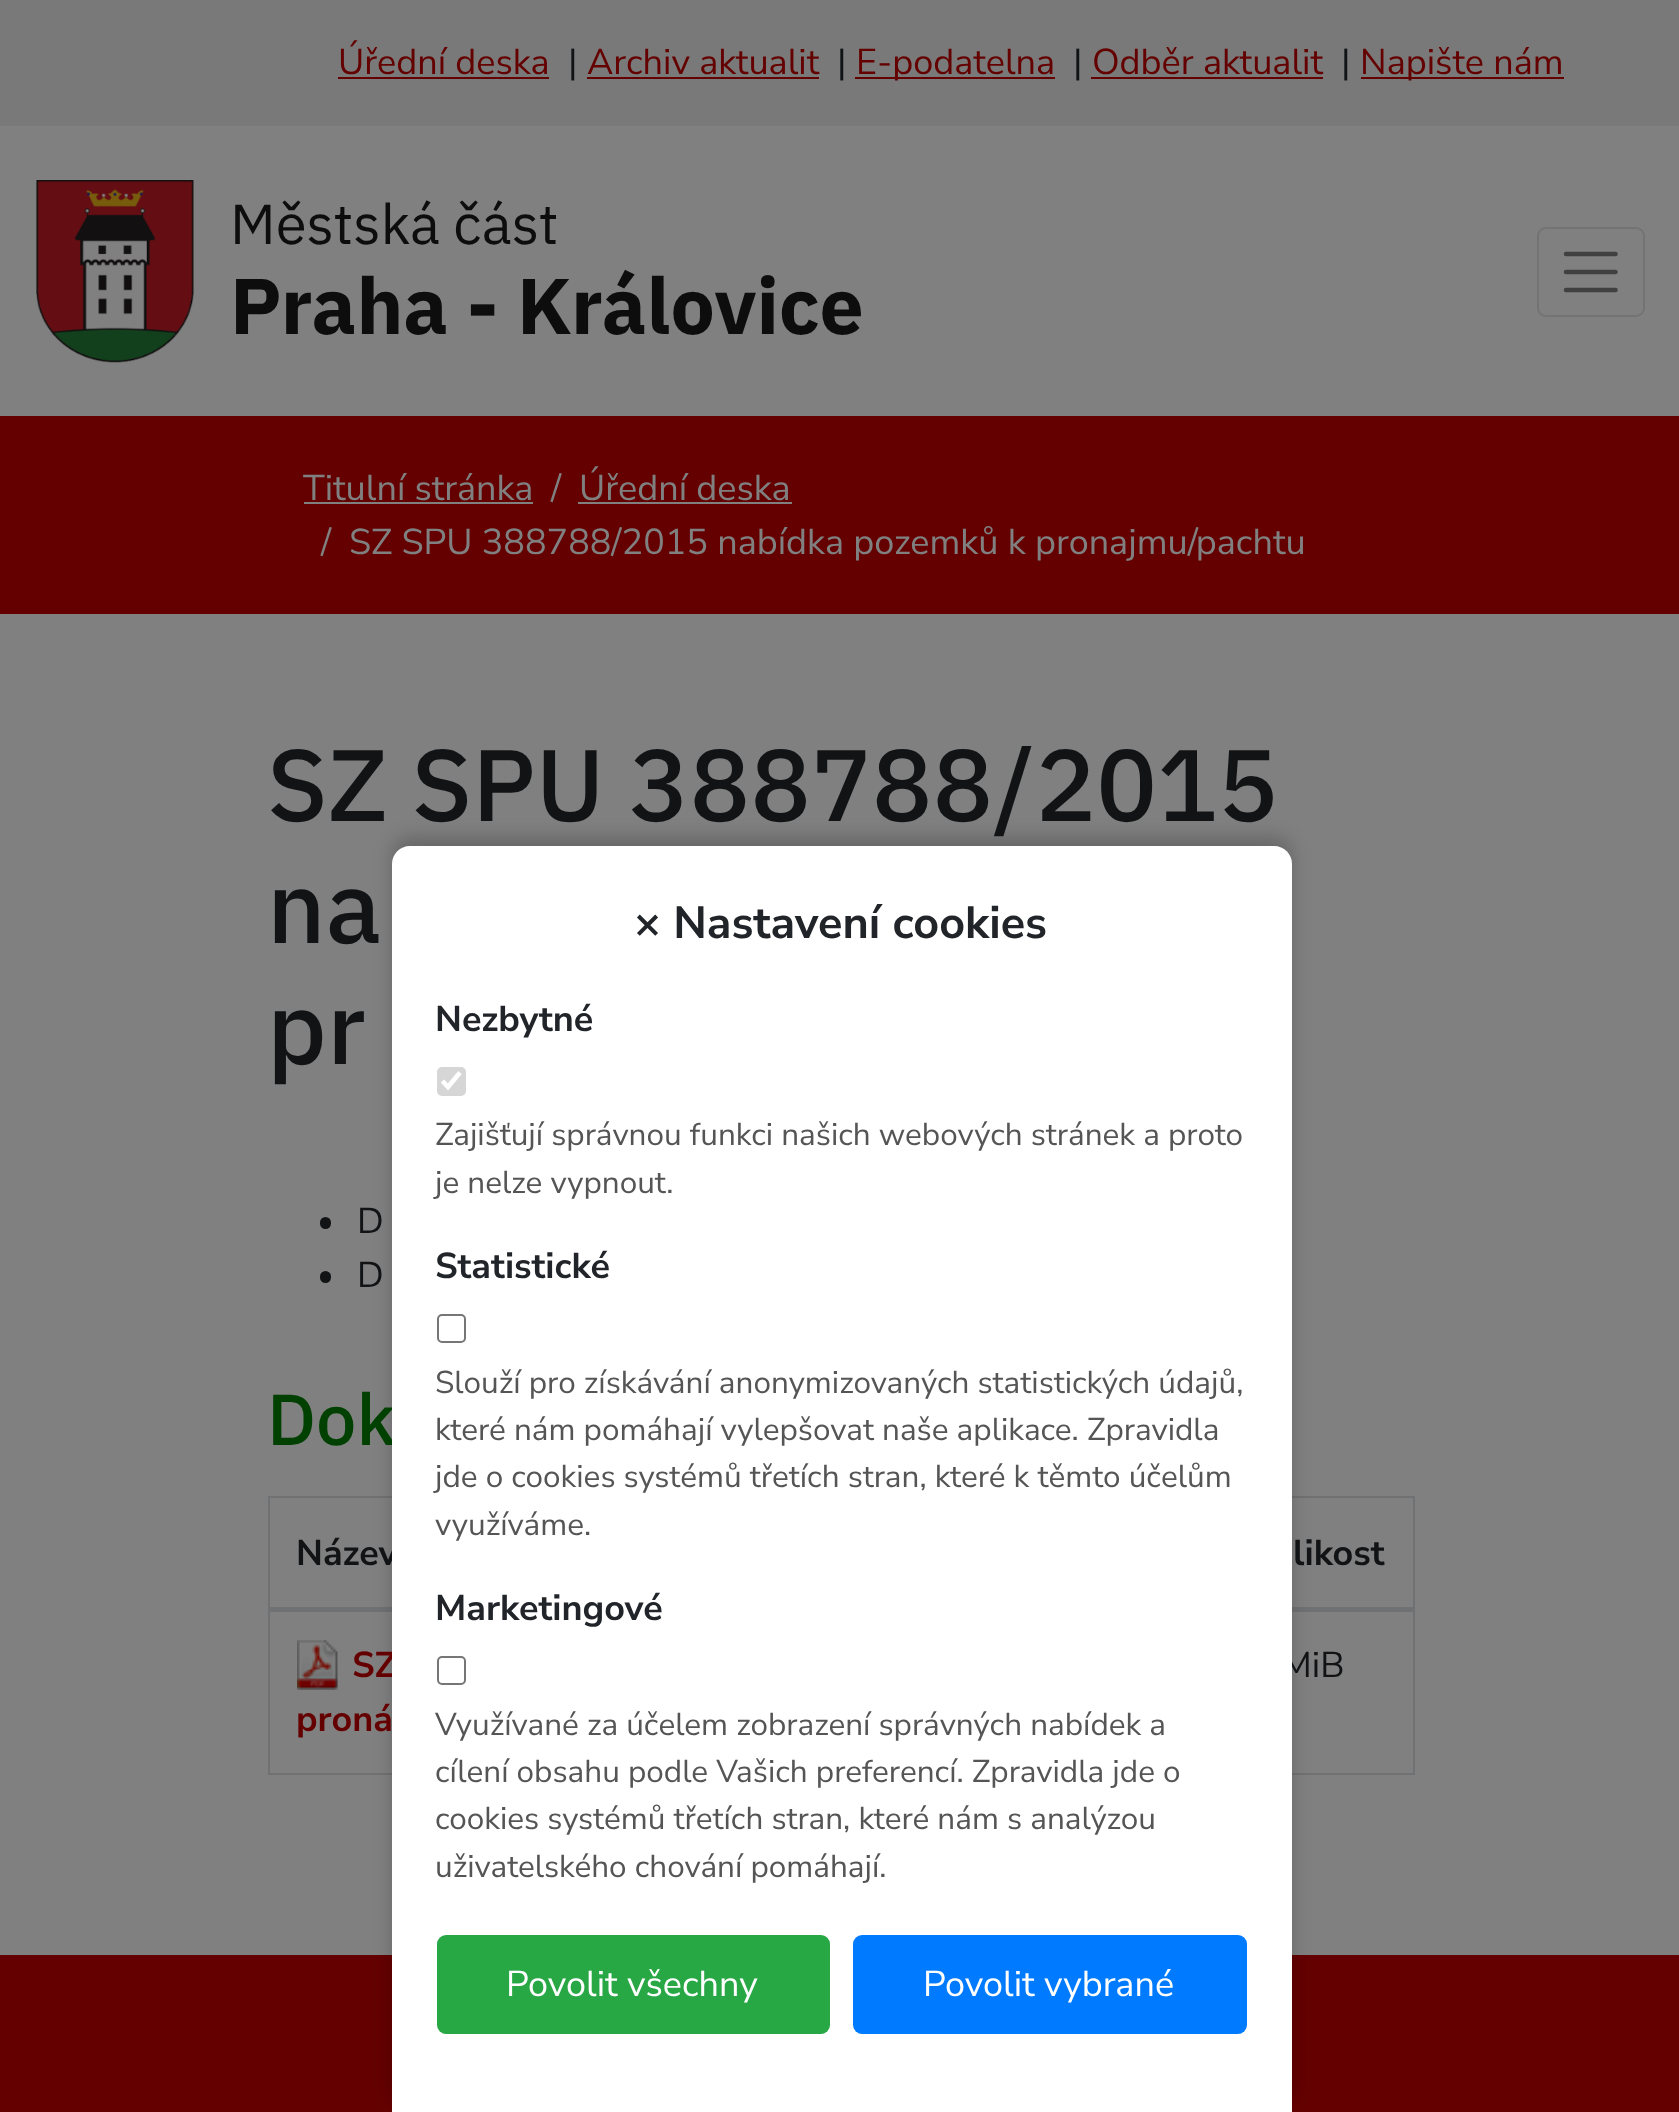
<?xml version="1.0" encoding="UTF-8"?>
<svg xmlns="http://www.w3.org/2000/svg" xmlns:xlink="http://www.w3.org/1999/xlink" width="1679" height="2112">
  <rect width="100%" height="100%" fill="#808080" />
  <rect width="1679" height="126" fill="#797979" />
  <rect x="338" y="77" width="211" height="2" fill="#640000" />
  <rect x="587" y="77" width="232" height="2" fill="#640000" />
  <rect x="855" y="77" width="200" height="2" fill="#640000" />
  <rect x="1091" y="77" width="232" height="2" fill="#640000" />
  <rect x="1361" y="77" width="203" height="2" fill="#640000" />
  <image x="36" y="180" width="158" height="183" xlink:href="image1.png" />
  <rect x="1538" y="228" width="106" height="88" rx="8" fill="none" stroke="#737373" stroke-width="2" />
  <path d="M 1566 254 h 49.5 m -49.5 18 h 49.5 m -49.5 18 h 49.5" fill="none" stroke="#404040" stroke-width="4.5" stroke-linecap="round" />
  <rect y="416" width="1679" height="198" fill="#640000" />
  <rect x="304" y="502" width="229" height="2" fill="#808080" />
  <rect x="578" y="502" width="214" height="2" fill="#808080" />
  <rect x="268" y="1496" width="124" height="2" fill="#6f7173" />
  <rect x="268" y="1773" width="124" height="2" fill="#6f7173" />
  <rect x="268" y="1609" width="2" height="166" fill="#6f7173" />
  <rect x="268" y="1496" width="2" height="115" fill="#6f7173" />
  <rect x="268" y="1607" width="124" height="5" fill="#6f7173" />
  <rect x="1292" y="1496" width="123" height="2" fill="#6f7173" />
  <rect x="1413" y="1609" width="2" height="166" fill="#6f7173" />
  <rect x="1413" y="1496" width="2" height="115" fill="#6f7173" />
  <rect x="1292" y="1607" width="123" height="5" fill="#6f7173" />
  <rect x="1292" y="1773" width="123" height="2" fill="#6f7173" />
  <rect y="1955" width="1679" height="157" fill="#640000" />
  <rect x="392" y="837" width="900" height="1267" rx="18" fill="#000000" fill-opacity="0.2" filter="blur(9px)" />
  <rect x="320" y="1217" width="11" height="12" rx="5.5" fill="#111315" />
  <rect x="320" y="1271" width="11" height="12" rx="5.5" fill="#111315" />
  <image x="297" y="1640" width="41" height="50" xlink:href="image2.png" />
  <text x="338" y="74" style="font-family: Nunito Sans; font-size: 36px; fill: #640000">Úřední deska</text>
  <text x="568" y="74" style="font-family: Nunito Sans; font-size: 36px; fill: #111315">|</text>
  <text x="587" y="74" style="font-family: Nunito Sans; font-size: 36px; fill: #640000">Archiv aktualit</text>
  <text x="837" y="74" style="font-family: Nunito Sans; font-size: 36px; fill: #111315">|</text>
  <text x="856" y="74" style="font-family: Nunito Sans; font-size: 36px; fill: #640000">E-podatelna</text>
  <text x="1073" y="74" style="font-family: Nunito Sans; font-size: 36px; fill: #111315">|</text>
  <text x="1092" y="74" style="font-family: Nunito Sans; font-size: 36px; fill: #640000">Odběr aktualit</text>
  <text x="1341" y="74" style="font-family: Nunito Sans; font-size: 36px; fill: #111315">|</text>
  <text x="1360" y="74" style="font-family: Nunito Sans; font-size: 36px; fill: #640000">Napište nám</text>
  <text x="230" y="244" style="font-family: IBM Plex Sans; font-size: 56.25px; fill: #0d0d0d">Městská část</text>
  <text x="230" y="334" style="font-family: IBM Plex Sans; font-size: 78.75px; font-weight: bold; fill: #0d0d0d">Praha - Královice</text>
  <text x="303" y="500" style="font-family: Nunito Sans; font-size: 36px; fill: #808080">Titulní stránka</text>
  <text x="551" y="500" style="font-family: Nunito Sans; font-size: 36px; fill: #808080">/</text>
  <text x="579" y="500" style="font-family: Nunito Sans; font-size: 36px; fill: #808080">Úřední deska</text>
  <text x="321" y="554" style="font-family: Nunito Sans; font-size: 36px; fill: #808080">/</text>
  <text x="349" y="554" style="font-family: Nunito Sans; font-size: 36px; fill: #808080">SZ SPU 388788/2015 nabídka pozemků k pronajmu/pachtu</text>
  <text x="267" y="821" style="font-family: IBM Plex Sans; font-size: 101.25px; font-weight: 500; fill: #111315">SZ SPU 388788/2015</text>
  <text x="267" y="943" style="font-family: IBM Plex Sans; font-size: 101.25px; font-weight: 500; fill: #111315">na</text>
  <text x="267" y="1064" style="font-family: IBM Plex Sans; font-size: 101.25px; font-weight: 500; fill: #111315">pr</text>
  <text x="357" y="1233" style="font-family: Nunito Sans; font-size: 36px; fill: #111315">D</text>
  <text x="357" y="1287" style="font-family: Nunito Sans; font-size: 36px; fill: #111315">D</text>
  <text x="267" y="1445" style="font-family: IBM Plex Sans; font-size: 72px; font-weight: 500; fill: #004000">Dok</text>
  <text x="296" y="1565" style="font-family: Nunito Sans; font-size: 36px; font-weight: bold; fill: #111315">Název</text>
  <text x="1293" y="1565" style="font-family: Nunito Sans; font-size: 36px; font-weight: bold; fill: #111315">likost</text>
  <text x="352" y="1677" style="font-family: Nunito Sans; font-size: 36px; font-weight: bold; fill: #640000">SZ</text>
  <text x="296" y="1731" style="font-family: Nunito Sans; font-size: 36px; font-weight: bold; fill: #640000">proná</text>
  <text x="1281" y="1677" style="font-family: Nunito Sans; font-size: 36px; fill: #111315">MiB</text>
  <path d="M 410 846 h 864 c 10 0 18 8 18 18 v 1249 h -900 v -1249 c 0 -10 8 -18 18 -18 z" fill="#ffffff" />
  <rect x="853" y="1935" width="394" height="99" rx="9" fill="#007bff" />
  <text x="923" y="1996" style="font-family: Nunito Sans; font-size: 36px; fill: #ffffff">Povolit vybrané</text>
  <rect x="437" y="1935" width="393" height="99" rx="9" fill="#28a745" />
  <text x="506" y="1996" style="font-family: Nunito Sans; font-size: 36px; fill: #ffffff">Povolit všechny</text>
  <text x="435" y="1877" style="font-family: Nunito Sans; font-size: 31.5px; fill: #555555">uživatelského chování pomáhají.</text>
  <text x="435" y="1829" style="font-family: Nunito Sans; font-size: 31.5px; fill: #555555">cookies systémů třetích stran, které nám s analýzou</text>
  <text x="435" y="1782" style="font-family: Nunito Sans; font-size: 31.5px; fill: #555555">cílení obsahu podle Vašich preferencí. Zpravidla jde o</text>
  <text x="435" y="1735" style="font-family: Nunito Sans; font-size: 31.5px; fill: #555555">Využívané za účelem zobrazení správných nabídek a</text>
  <rect x="438" y="1657" width="27" height="27" rx="4" fill="none" stroke="#767676" stroke-width="2" />
  <text x="435" y="1620" style="font-family: Nunito Sans; font-size: 36px; font-weight: bold; fill: #212529">Marketingové</text>
  <text x="435" y="1535" style="font-family: Nunito Sans; font-size: 31.5px; fill: #555555">využíváme.</text>
  <text x="435" y="1487" style="font-family: Nunito Sans; font-size: 31.5px; fill: #555555">jde o cookies systémů třetích stran, které k těmto účelům</text>
  <text x="435" y="1440" style="font-family: Nunito Sans; font-size: 31.5px; fill: #555555">které nám pomáhají vylepšovat naše aplikace. Zpravidla</text>
  <text x="435" y="1393" style="font-family: Nunito Sans; font-size: 31.5px; fill: #555555">Slouží pro získávání anonymizovaných statistických údajů,</text>
  <rect x="438" y="1315" width="27" height="27" rx="4" fill="none" stroke="#767676" stroke-width="2" />
  <text x="435" y="1278" style="font-family: Nunito Sans; font-size: 36px; font-weight: bold; fill: #212529">Statistické</text>
  <text x="435" y="1193" style="font-family: Nunito Sans; font-size: 31.5px; fill: #555555">je nelze vypnout.</text>
  <text x="435" y="1145" style="font-family: Nunito Sans; font-size: 31.5px; fill: #555555">Zajišťují správnou funkci našich webových stránek a proto</text>
  <rect x="437" y="1067" width="29" height="29" rx="5" fill="#d6d6d6" />
  <path d="M 442.5 1081 l 5.5 6 l 12 -14.5" fill="none" stroke="#ffffff" stroke-width="4.7" />
  <text x="435" y="1031" style="font-family: Nunito Sans; font-size: 36px; font-weight: bold; fill: #212529">Nezbytné</text>
  <text x="634" y="938" style="font-family: Nunito Sans; font-size: 45px; font-weight: bold; fill: #212529">× Nastavení cookies</text>
</svg>
